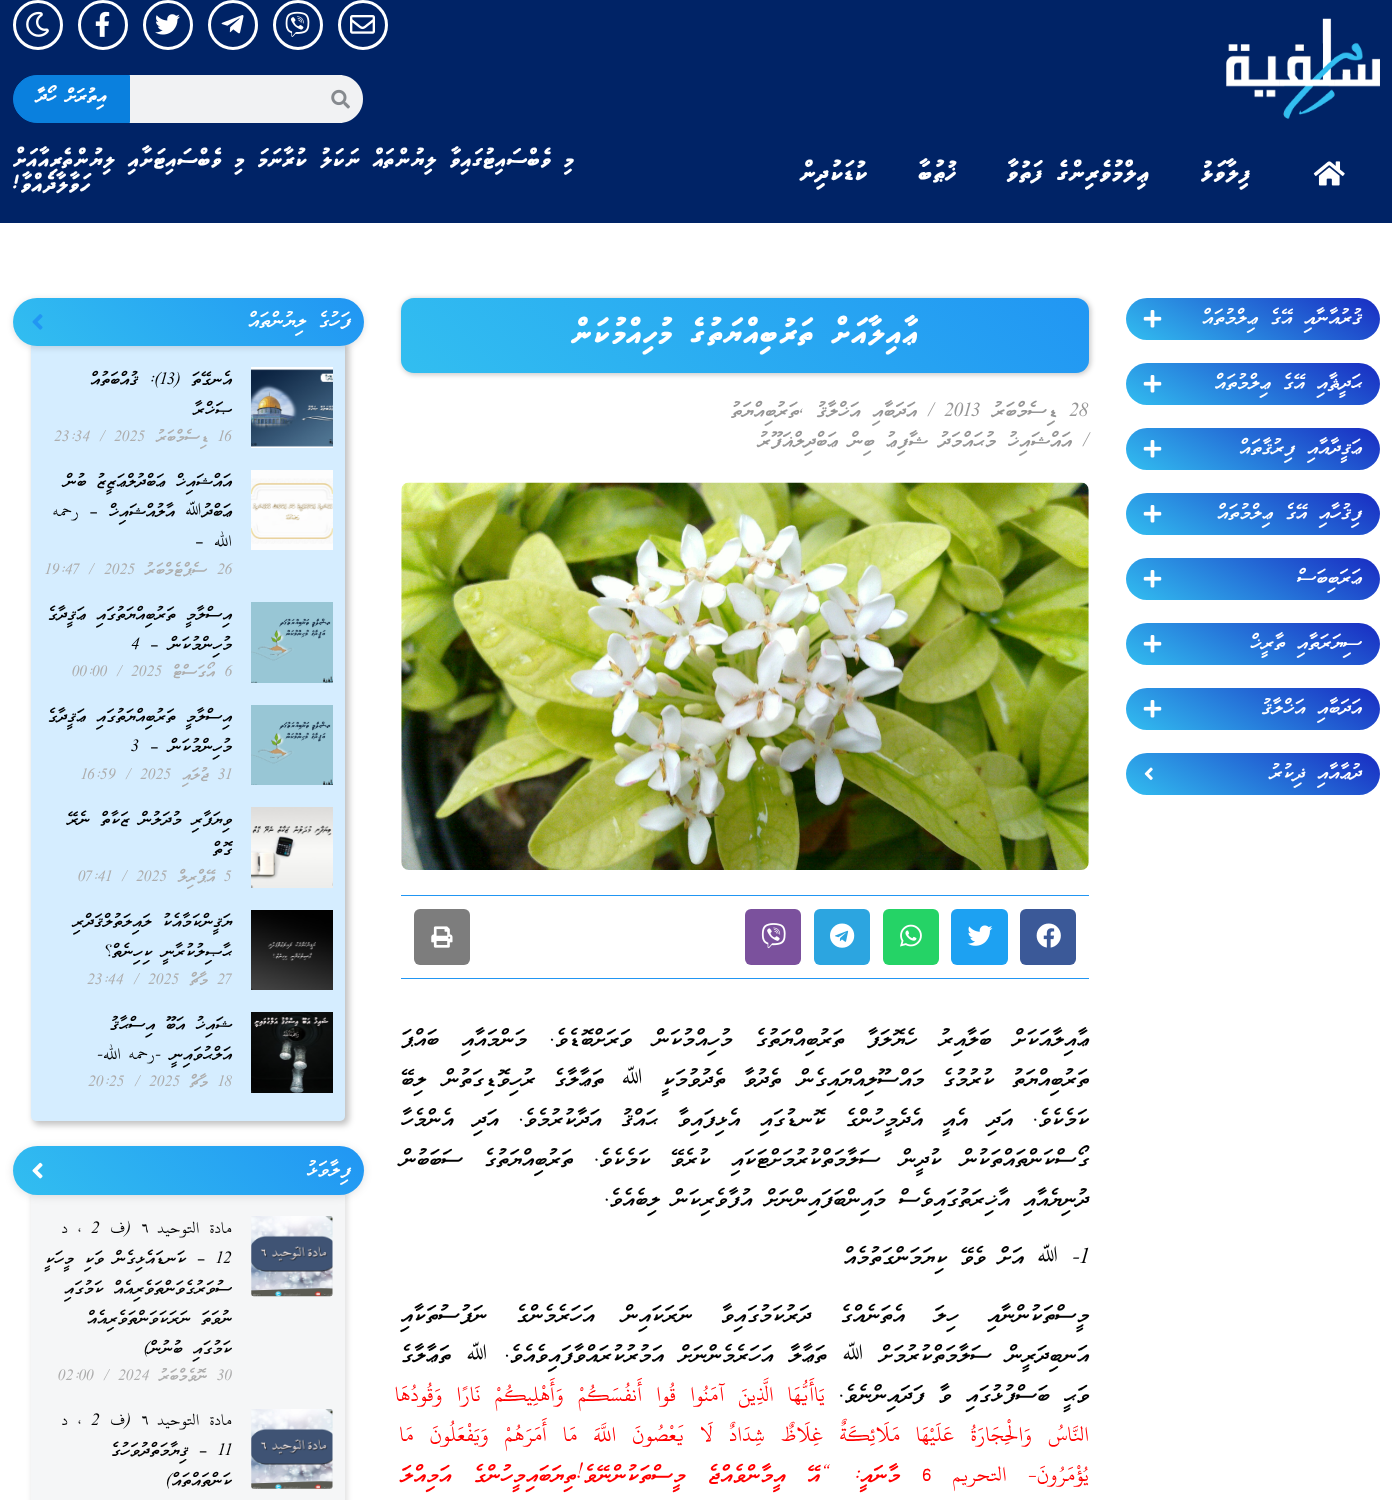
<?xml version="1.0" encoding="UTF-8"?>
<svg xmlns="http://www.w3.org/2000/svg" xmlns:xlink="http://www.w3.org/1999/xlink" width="1392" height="1500">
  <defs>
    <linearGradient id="g1" gradientUnits="userSpaceOnUse" x1="1212" y1="390" x2="1294" y2="248"><stop offset="0" stop-color="#32bef0" /><stop offset="1" stop-color="#192bc2" /></linearGradient>
    <linearGradient id="g2" gradientUnits="userSpaceOnUse" x1="1212" y1="455" x2="1294" y2="313"><stop offset="0" stop-color="#32bef0" /><stop offset="1" stop-color="#192bc2" /></linearGradient>
    <linearGradient id="g3" gradientUnits="userSpaceOnUse" x1="1212" y1="520" x2="1294" y2="378"><stop offset="0" stop-color="#32bef0" /><stop offset="1" stop-color="#192bc2" /></linearGradient>
    <linearGradient id="g4" gradientUnits="userSpaceOnUse" x1="1212" y1="585" x2="1294" y2="443"><stop offset="0" stop-color="#32bef0" /><stop offset="1" stop-color="#192bc2" /></linearGradient>
    <linearGradient id="g5" gradientUnits="userSpaceOnUse" x1="1212" y1="650" x2="1294" y2="508"><stop offset="0" stop-color="#32bef0" /><stop offset="1" stop-color="#192bc2" /></linearGradient>
    <linearGradient id="g6" gradientUnits="userSpaceOnUse" x1="1212" y1="715" x2="1294" y2="573"><stop offset="0" stop-color="#32bef0" /><stop offset="1" stop-color="#192bc2" /></linearGradient>
    <linearGradient id="g7" gradientUnits="userSpaceOnUse" x1="1212" y1="780" x2="1294" y2="638"><stop offset="0" stop-color="#32bef0" /><stop offset="1" stop-color="#192bc2" /></linearGradient>
    <linearGradient id="g8" gradientUnits="userSpaceOnUse" x1="1212" y1="845" x2="1294" y2="703"><stop offset="0" stop-color="#32bef0" /><stop offset="1" stop-color="#192bc2" /></linearGradient>
    <linearGradient id="g9" gradientUnits="userSpaceOnUse" x1="554" y1="526" x2="936" y2="144"><stop offset="0" stop-color="#32bef0" /><stop offset="1" stop-color="#2196f3" /></linearGradient>
    <linearGradient id="g10" gradientUnits="userSpaceOnUse" x1="88" y1="422" x2="288" y2="222"><stop offset="0" stop-color="#32bef0" /><stop offset="1" stop-color="#2196f3" /></linearGradient>
    <clipPath id="clip1"><path d="M 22 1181 h 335 v 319 h -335 z m 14 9 h 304 c 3 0 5 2 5 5 v 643 c 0 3 -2 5 -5 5 h -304 c -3 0 -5 -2 -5 -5 v -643 c 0 -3 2 -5 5 -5 z" clip-rule="evenodd" /></clipPath>
    <linearGradient id="g11" gradientUnits="userSpaceOnUse" x1="88" y1="1271" x2="288" y2="1071"><stop offset="0" stop-color="#32bef0" /><stop offset="1" stop-color="#2196f3" /></linearGradient>
  </defs>
  <rect width="100%" height="100%" fill="#ffffff" />
  <rect width="1392" height="223" fill="#002366" />
  <image x="1226" y="18" width="154" height="101" xlink:href="image1.png" />
  <image x="1313" y="161" width="32" height="25" xlink:href="image2.png" />
  <circle cx="363" cy="25" r="23.5" fill="none" stroke="#ffffff" stroke-width="3" />
  <image x="350" y="15" width="25" height="19" xlink:href="image3.png" />
  <circle cx="298" cy="25" r="23.5" fill="none" stroke="#ffffff" stroke-width="3" />
  <image x="285" y="11" width="25" height="26" xlink:href="image4.png" />
  <circle cx="233" cy="25" r="23.5" fill="none" stroke="#ffffff" stroke-width="3" />
  <image x="221" y="15" width="23" height="19" xlink:href="image5.png" />
  <circle cx="168" cy="25" r="23.5" fill="none" stroke="#ffffff" stroke-width="3" />
  <image x="155" y="14" width="25" height="21" xlink:href="image6.png" />
  <circle cx="103" cy="25" r="23.5" fill="none" stroke="#ffffff" stroke-width="3" />
  <image x="95" y="11" width="15" height="26" xlink:href="image7.png" />
  <circle cx="38" cy="25" r="23.5" fill="none" stroke="#ffffff" stroke-width="3" />
  <image x="26" y="11" width="23" height="26" xlink:href="image8.png" />
  <path d="M 123 75 h 216 c 13.5 0 24 10.5 24 24 c 0 13.5 -10.5 24 -24 24 h -216 z" fill="#f1f2f3" />
  <image x="331" y="89" width="19" height="20" xlink:href="image9.png" />
  <path d="M 37 75.5 h 92.5 v 47 h -92.5 c -13 0 -23.5 -10.5 -23.5 -23.5 c 0 -13 10.5 -23.5 23.5 -23.5 z" fill="#0a80de" stroke="#0a80de" />
  <rect x="1126" y="298" width="254" height="42" rx="21" fill="url(#g1)" />
  <image x="1143" y="310" width="19" height="18" xlink:href="image10.png" />
  <rect x="1126" y="363" width="254" height="42" rx="21" fill="url(#g2)" />
  <image x="1143" y="375" width="19" height="18" xlink:href="image10.png" />
  <rect x="1126" y="428" width="254" height="42" rx="21" fill="url(#g3)" />
  <image x="1143" y="440" width="19" height="18" xlink:href="image10.png" />
  <rect x="1126" y="493" width="254" height="42" rx="21" fill="url(#g4)" />
  <image x="1143" y="505" width="19" height="18" xlink:href="image10.png" />
  <rect x="1126" y="558" width="254" height="42" rx="21" fill="url(#g5)" />
  <image x="1143" y="570" width="19" height="18" xlink:href="image10.png" />
  <rect x="1126" y="623" width="254" height="42" rx="21" fill="url(#g6)" />
  <image x="1143" y="635" width="19" height="18" xlink:href="image10.png" />
  <rect x="1126" y="688" width="254" height="42" rx="21" fill="url(#g7)" />
  <image x="1143" y="700" width="19" height="18" xlink:href="image10.png" />
  <rect x="1126" y="753" width="254" height="42" rx="21" fill="url(#g8)" />
  <image x="1144" y="767" width="9" height="13" xlink:href="image11.png" />
  <rect x="401" y="298" width="690" height="77" rx="14" fill="#000000" fill-opacity="0.2" filter="blur(2.5px)" />
  <rect x="401" y="298" width="688" height="75" rx="13" fill="url(#g9)" />
  <image x="401" y="482" width="688" height="388" xlink:href="image12.png" />
  <rect x="401" y="895" width="688" height="1" fill="#2196f3" />
  <rect x="401" y="978" width="688" height="1" fill="#2196f3" />
  <rect x="1020" y="909" width="56" height="56" rx="6" fill="#3b5998" />
  <image x="1036" y="923" width="25" height="25" xlink:href="image13.png" />
  <rect x="951" y="909" width="57" height="56" rx="6" fill="#1da1f2" />
  <image x="967" y="925" width="26" height="21" xlink:href="image14.png" />
  <rect x="883" y="909" width="56" height="56" rx="6" fill="#25d366" />
  <image x="900" y="924" width="22" height="23" xlink:href="image15.png" />
  <rect x="814" y="909" width="56" height="56" rx="6" fill="#2ca5e0" />
  <image x="830" y="923" width="25" height="25" xlink:href="image16.png" />
  <rect x="745" y="909" width="56" height="56" rx="6" fill="#7b519d" />
  <image x="761" y="923" width="25" height="26" xlink:href="image17.png" />
  <rect x="414" y="909" width="56" height="56" rx="6" fill="#7d7d7d" />
  <image x="431" y="926" width="22" height="22" xlink:href="image18.png" />
  <rect x="33" y="343" width="316" height="782" rx="6" fill="#000000" fill-opacity="0.24" filter="blur(3px)" />
  <rect x="31" y="341" width="314" height="780" rx="5" fill="#d5edff" />
  <rect x="13" y="299" width="351" height="49" rx="24.5" fill="#000000" fill-opacity="0.12" filter="blur(3px)" />
  <rect x="13" y="298" width="351" height="48" rx="24" fill="url(#g10)" />
  <image x="32" y="314" width="11" height="16" xlink:href="image19.png" />
  <image x="251" y="367" width="82" height="81" xlink:href="image20.png" />
  <image x="251" y="470" width="82" height="80" xlink:href="image21.png" />
  <image x="251" y="602" width="82" height="81" xlink:href="image22.png" />
  <image x="251" y="705" width="82" height="80" xlink:href="image23.png" />
  <image x="251" y="807" width="82" height="81" xlink:href="image24.png" />
  <image x="251" y="910" width="82" height="80" xlink:href="image25.png" />
  <image x="251" y="1012" width="82" height="81" xlink:href="image26.png" />
  <g clip-path="url(#clip1)">
    <rect x="31" y="1190" width="317" height="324" rx="6" fill="#000000" fill-opacity="0.1" filter="blur(2.5px)" />
  </g>
  <rect x="31" y="1194" width="314" height="306" fill="#dde0e4" fill-opacity="0.29" />
  <rect x="13" y="1148" width="351" height="48" rx="24" fill="#000000" fill-opacity="0.12" filter="blur(4px)" />
  <rect x="13" y="1146" width="351" height="49" rx="24.5" fill="url(#g11)" />
  <image x="32" y="1162" width="11" height="17" xlink:href="image27.png" />
  <image x="251" y="1216" width="82" height="81" xlink:href="image28.png" />
  <image x="251" y="1409" width="82" height="80" xlink:href="image29.png" />
  <text x="1251" y="179" style="font-family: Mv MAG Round; font-size: 27.5px; font-weight: bold; direction: rtl; fill: #ffffff">ފިލާވަޅު</text>
  <text x="1150" y="179" style="font-family: Mv MAG Round; font-size: 27.5px; font-weight: bold; direction: rtl; fill: #ffffff">ޢިލްމުވެރިންގެ ފަތުވާ</text>
  <text x="957" y="179" style="font-family: Mv MAG Round; font-size: 27.5px; font-weight: bold; direction: rtl; fill: #ffffff">ޚުޠުބާ</text>
  <text x="868" y="179" style="font-family: Mv MAG Round; font-size: 27.5px; font-weight: bold; direction: rtl; fill: #ffffff">ކުޑަކުދިން</text>
  <text x="106" y="101" style="font-family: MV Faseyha; font-size: 17.5px; font-weight: bold; direction: rtl; fill: #ffffff">އިތުރަށް ހޯދާ</text>
  <text x="575" y="165" style="font-family: Mv MAG Round; font-size: 25px; font-weight: bold; direction: rtl; fill: #ffffff">މި ވެބްސައިޓުގައިވާ ލިޔުންތައް ނަކަލު ކުރާނަމަ މި ވެބްސައިޓަށާއި ލިޔުންތެރިއާއަށް</text>
  <text x="91" y="190" style="font-family: Mv MAG Round; font-size: 25px; font-weight: bold; direction: rtl; fill: #ffffff">ހަވާލާދެއްވާ!</text>
  <text x="1362" y="323" style="font-family: MV Faseyha; font-size: 20px; direction: rtl; fill: #ffffff">ޤުރުއާނާއި އޭގެ ޢިލްމުތައް</text>
  <text x="1362" y="388" style="font-family: MV Faseyha; font-size: 20px; direction: rtl; fill: #ffffff">ޙަދީޘާއި އޭގެ ޢިލްމުތައް</text>
  <text x="1362" y="453" style="font-family: MV Faseyha; font-size: 20px; direction: rtl; fill: #ffffff">ޢަޤީދާއާއި ފިރުޤާތައް</text>
  <text x="1362" y="518" style="font-family: MV Faseyha; font-size: 20px; direction: rtl; fill: #ffffff">ފިޤުހާއި އޭގެ ޢިލްމުތައް</text>
  <text x="1362" y="583" style="font-family: MV Faseyha; font-size: 20px; direction: rtl; fill: #ffffff">ޢަރަބިބަސް</text>
  <text x="1362" y="648" style="font-family: MV Faseyha; font-size: 20px; direction: rtl; fill: #ffffff">ސިޔަރަތާއި ތާރީޚް</text>
  <text x="1362" y="713" style="font-family: MV Faseyha; font-size: 20px; direction: rtl; fill: #ffffff">އަދަބާއި އަޚްލާޤު</text>
  <text x="1362" y="778" style="font-family: MV Faseyha; font-size: 20px; direction: rtl; fill: #ffffff">ދުޢާއާއި ޛިކުރު</text>
  <text x="919" y="341" style="font-family: Mv MAG Round; font-size: 35px; font-weight: bold; direction: rtl; fill: #ffffff">ޢާއިލާއަށް ތަރުބިއްޔަތުގެ މުހިއްމުކަން</text>
  <text x="1069" y="416" style="font-family: MV Faseyha; font-size: 20px; fill: #969696">28</text>
  <text x="1058" y="416" style="font-family: MV Faseyha; font-size: 20px; direction: rtl; fill: #969696">ޑިސެމްބަރު</text>
  <text x="944" y="416" style="font-family: MV Faseyha; font-size: 20px; fill: #969696">2013</text>
  <text x="928" y="416" style="font-family: MV Faseyha; font-size: 20px; fill: #969696">/</text>
  <text x="917" y="416" style="font-family: MV Faseyha; font-size: 20px; direction: rtl; fill: #969696">އަދަބާއި އަޚްލާޤު</text>
  <text x="799" y="416" style="font-family: MV Faseyha; font-size: 20px; fill: #969696">,</text>
  <text x="799" y="416" style="font-family: MV Faseyha; font-size: 20px; direction: rtl; fill: #969696">ތަރުބިއްޔަތު</text>
  <text x="1083" y="446" style="font-family: MV Faseyha; font-size: 20px; fill: #969696">/</text>
  <text x="1072" y="446" style="font-family: MV Faseyha; font-size: 20px; direction: rtl; fill: #969696">އައްޝައިޚު މުޙައްމަދު ޝާފިޢު ބިން ޢަބްދިލްޣަފޫރު</text>
  <text x="1089" y="1045" word-spacing="9.25" style="font-family: MV Faseyha; font-size: 22.5px; direction: rtl; fill: #000000">ޢާއިލާއަކަށް ބަލާއިރު ހެޔޮލަފާ ތަރުބިއްޔަތުގެ މުހިއްމުކަން ވަރަށްބޮޑެވެ. މަންމައާއި ބައްޕަ</text>
  <text x="1089" y="1085" word-spacing="4.75" style="font-family: MV Faseyha; font-size: 22.5px; direction: rtl; fill: #000000">ތަރުބިއްޔަތު ކުރުމުގެ މައްސޫލިއްޔައިގެން ތެދުވާ ތެދުވުމަކީ ﷲ ތަޢާލާގެ ރުހިވޮޑިގަތުން ލިބޭ</text>
  <text x="1089" y="1125" word-spacing="6.5" style="font-family: MV Faseyha; font-size: 22.5px; direction: rtl; fill: #000000">ކަމެކެވެ. އަދި އެއީ އެދެމީހުންގެ ކޮނޑުގައި އެޅިފައިވާ ޙައްޤު އަދާކުރުމެވެ. އަދި އެންމެހާ</text>
  <text x="1089" y="1165" word-spacing="7.5" style="font-family: MV Faseyha; font-size: 22.5px; direction: rtl; fill: #000000">ގޯސްކަންތައްތަކުން ކުދީން ސަލާމަތްކުރުމަށްޓަކައި ކުރެވޭ ކަމެކެވެ. ތަރުބިއްޔަތުގެ ސަބަބުން</text>
  <text x="1089" y="1205" style="font-family: MV Faseyha; font-size: 22.5px; direction: rtl; fill: #000000">ދުނިޔެއާއި އާޚިރަތުގައިވެސް މައިންބަފައިންނަށް އުފާވެރިކަން ލިބެއެވެ.</text>
  <text x="1080" y="1263" style="font-family: MV Faseyha; font-size: 22.5px; fill: #000000">1</text>
  <text x="1080" y="1263" style="font-family: MV Faseyha; font-size: 22.5px; direction: rtl; fill: #000000">- ﷲ އަށް ވެވޭ ކިޔަމަންގަތުމެއް</text>
  <text x="1089" y="1321" word-spacing="15.5" style="font-family: MV Faseyha; font-size: 22.5px; direction: rtl; fill: #000000">މީސްތަކުންނާއި ހިލަ އެތަނެއްގެ ދަރުކަމުގައިވާ ނަރަކައިން އަހަރެމެންގެ ނަފުސުތަކާއި</text>
  <text x="1089" y="1361" word-spacing="2.5" style="font-family: MV Faseyha; font-size: 22.5px; direction: rtl; fill: #000000">އަނބިދަރީން ސަލާމަތްކުރުމަށް ﷲ ތަޢާލާ އަހަރެމެންނަށް އަމުރުކުރައްވާފައިވެއެވެ. ﷲ ތަޢާލާގެ</text>
  <text x="1089" y="1401" word-spacing="1" style="font-family: MV Faseyha; font-size: 22.5px; direction: rtl; fill: #000000">ވަޙީ ބަސްފުޅުގައި ވާ ފަދައިންނެވެ.</text>
  <text x="825" y="1401" word-spacing="9.75" style="font-family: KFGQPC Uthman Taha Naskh; font-size: 22.5px; direction: rtl; fill: #ff0000">يَاأَيُّهَا الَّذِينَ آمَنُوا قُوا أَنفُسَكُمْ وَأَهْلِيكُمْ نَارًا وَقُودُهَا</text>
  <text x="1089" y="1441" word-spacing="11.6" style="font-family: KFGQPC Uthman Taha Naskh; font-size: 22.5px; direction: rtl; fill: #ff0000">النَّاسُ وَالْحِجَارَةُ عَلَيْهَا مَلَائِكَةٌ غِلَاظٌ شِدَادٌ لَا يَعْصُونَ اللَّهَ مَا أَمَرَهُمْ وَيَفْعَلُونَ مَا</text>
  <text x="1089" y="1481" word-spacing="17" style="font-family: KFGQPC Uthman Taha Naskh; font-size: 22.5px; direction: rtl; fill: #ff0000">يُؤْمَرُونَ- التحريم</text>
  <text x="922" y="1481" style="font-family: KFGQPC Uthman Taha Naskh; font-size: 22.5px; fill: #ff0000">6</text>
  <text x="900" y="1481" word-spacing="8.5" style="font-family: MV Faseyha; font-size: 22.5px; direction: rtl; fill: #ff0000">މާނައީ: “އޭ އީމާންވެއްޖެ މީސްތަކުންނޭވެ!</text>
  <text x="576" y="1481" word-spacing="8.5" style="font-family: MV Faseyha; font-size: 22.5px; direction: rtl; fill: #ff0000">ތިޔަބައިމީހުންގެ އަމިއްލަ</text>
  <text x="351" y="326" style="font-family: MV Faseyha; font-size: 20px; direction: rtl; fill: #ffffff">ފަހުގެ ލިޔުންތައް</text>
  <text x="160" y="384" style="font-family: MV Faseyha; font-size: 17.5px; direction: rtl; fill: #000000">): ޤުއްބަތުއް</text>
  <text x="160" y="384" style="font-family: MV Faseyha; font-size: 17.5px; fill: #000000">13</text>
  <text x="232" y="384" style="font-family: MV Faseyha; font-size: 17.5px; direction: rtl; fill: #000000">އެނގޭތަ (</text>
  <text x="232" y="414" style="font-family: MV Faseyha; font-size: 17.5px; direction: rtl; fill: #000000">ޞަޚްރާ</text>
  <text x="218" y="441" style="font-family: MV Faseyha; font-size: 16px; fill: #adadad">16</text>
  <text x="209" y="441" style="font-family: MV Faseyha; font-size: 16px; direction: rtl; fill: #adadad">ޑިސެމްބަރު</text>
  <text x="114" y="441" style="font-family: MV Faseyha; font-size: 16px; fill: #adadad">2025</text>
  <text x="100" y="441" style="font-family: MV Faseyha; font-size: 16px; fill: #adadad">/</text>
  <text x="54" y="441" style="font-family: MV Faseyha; font-size: 16px; fill: #adadad">23:34</text>
  <text x="232" y="486" style="font-family: MV Faseyha; font-size: 17.5px; direction: rtl; fill: #000000">އައްޝައިޚް ޢަބްދުލްޢަޒީޒު ބުން</text>
  <text x="232" y="516" style="font-family: MV Faseyha; font-size: 17.5px; direction: rtl; fill: #000000">ޢަބްދުﷲ އާލުއްޝައިޚް –</text>
  <text x="79" y="516" style="font-family: KFGQPC Uthman Taha Naskh; font-size: 17.5px; direction: rtl; fill: #000000">رحمه</text>
  <text x="232" y="546" style="font-family: KFGQPC Uthman Taha Naskh; font-size: 17.5px; direction: rtl; fill: #000000">الله</text>
  <text x="204" y="546" style="font-family: MV Faseyha; font-size: 17.5px; direction: rtl; fill: #000000">–</text>
  <text x="217" y="574" style="font-family: MV Faseyha; font-size: 16px; fill: #adadad">26</text>
  <text x="207" y="574" style="font-family: MV Faseyha; font-size: 16px; direction: rtl; fill: #adadad">ސެޕްޓެމްބަރު</text>
  <text x="104" y="574" style="font-family: MV Faseyha; font-size: 16px; fill: #adadad">2025</text>
  <text x="89" y="574" style="font-family: MV Faseyha; font-size: 16px; fill: #adadad">/</text>
  <text x="45" y="574" style="font-family: MV Faseyha; font-size: 16px; fill: #adadad">19:47</text>
  <text x="232" y="619" style="font-family: MV Faseyha; font-size: 17.5px; direction: rtl; fill: #000000">އިސްލާމީ ތަރުބިއްޔަތުގައި ޢަޤީދާގެ</text>
  <text x="232" y="649" style="font-family: MV Faseyha; font-size: 17.5px; direction: rtl; fill: #000000">މުހިންމުކަން –</text>
  <text x="131" y="649" style="font-family: MV Faseyha; font-size: 17.5px; fill: #000000">4</text>
  <text x="225" y="676" style="font-family: MV Faseyha; font-size: 16px; fill: #adadad">6</text>
  <text x="215" y="676" style="font-family: MV Faseyha; font-size: 16px; direction: rtl; fill: #adadad">އޯގަސްޓް</text>
  <text x="131" y="676" style="font-family: MV Faseyha; font-size: 16px; fill: #adadad">2025</text>
  <text x="117" y="676" style="font-family: MV Faseyha; font-size: 16px; fill: #adadad">/</text>
  <text x="72" y="676" style="font-family: MV Faseyha; font-size: 16px; fill: #adadad">00:00</text>
  <text x="232" y="721" style="font-family: MV Faseyha; font-size: 17.5px; direction: rtl; fill: #000000">އިސްލާމީ ތަރުބިއްޔަތުގައި ޢަޤީދާގެ</text>
  <text x="232" y="751" style="font-family: MV Faseyha; font-size: 17.5px; direction: rtl; fill: #000000">މުހިންމުކަން –</text>
  <text x="131" y="751" style="font-family: MV Faseyha; font-size: 17.5px; fill: #000000">3</text>
  <text x="218" y="779" style="font-family: MV Faseyha; font-size: 16px; fill: #adadad">31</text>
  <text x="209" y="779" style="font-family: MV Faseyha; font-size: 16px; direction: rtl; fill: #adadad">ޖުލައި</text>
  <text x="140" y="779" style="font-family: MV Faseyha; font-size: 16px; fill: #adadad">2025</text>
  <text x="126" y="779" style="font-family: MV Faseyha; font-size: 16px; fill: #adadad">/</text>
  <text x="81" y="779" style="font-family: MV Faseyha; font-size: 16px; fill: #adadad">16:59</text>
  <text x="232" y="824" style="font-family: MV Faseyha; font-size: 17.5px; direction: rtl; fill: #000000">ވިޔަފާރި މުދަލުން ޒަކާތް ނެރޭ</text>
  <text x="232" y="854" style="font-family: MV Faseyha; font-size: 17.5px; direction: rtl; fill: #000000">ގޮތް</text>
  <text x="224" y="881" style="font-family: MV Faseyha; font-size: 16px; fill: #adadad">5</text>
  <text x="215" y="881" style="font-family: MV Faseyha; font-size: 16px; direction: rtl; fill: #adadad">އޭޕްރިލް</text>
  <text x="136" y="881" style="font-family: MV Faseyha; font-size: 16px; fill: #adadad">2025</text>
  <text x="122" y="881" style="font-family: MV Faseyha; font-size: 16px; fill: #adadad">/</text>
  <text x="78" y="881" style="font-family: MV Faseyha; font-size: 16px; fill: #adadad">07:41</text>
  <text x="232" y="926" style="font-family: MV Faseyha; font-size: 17.5px; direction: rtl; fill: #000000">ޔަޤީންކަމާއެކު ލައިލަތުލްޤަދްރި</text>
  <text x="232" y="956" style="font-family: MV Faseyha; font-size: 17.5px; direction: rtl; fill: #000000">ޙާޞިލުކުރާނީ ކިހިނެތް؟</text>
  <text x="217" y="984" style="font-family: MV Faseyha; font-size: 16px; fill: #adadad">27</text>
  <text x="208" y="984" style="font-family: MV Faseyha; font-size: 16px; direction: rtl; fill: #adadad">މާޗް</text>
  <text x="148" y="984" style="font-family: MV Faseyha; font-size: 16px; fill: #adadad">2025</text>
  <text x="134" y="984" style="font-family: MV Faseyha; font-size: 16px; fill: #adadad">/</text>
  <text x="87" y="984" style="font-family: MV Faseyha; font-size: 16px; fill: #adadad">23:44</text>
  <text x="232" y="1029" style="font-family: MV Faseyha; font-size: 17.5px; direction: rtl; fill: #000000">ޝައިޚު އަބޫ އިސްޙާޤު</text>
  <text x="232" y="1059" style="font-family: MV Faseyha; font-size: 17.5px; direction: rtl; fill: #000000">އަލްޙުވައިނީ -</text>
  <text x="155" y="1059" style="font-family: KFGQPC Uthman Taha Naskh; font-size: 17.5px; direction: rtl; fill: #000000">رحمه</text>
  <text x="121" y="1059" style="font-family: KFGQPC Uthman Taha Naskh; font-size: 17.5px; direction: rtl; fill: #000000">الله</text>
  <text x="103" y="1059" style="font-family: MV Faseyha; font-size: 17.5px; direction: rtl; fill: #000000">-</text>
  <text x="218" y="1086" style="font-family: MV Faseyha; font-size: 16px; fill: #adadad">18</text>
  <text x="208" y="1086" style="font-family: MV Faseyha; font-size: 16px; direction: rtl; fill: #adadad">މާޗް</text>
  <text x="149" y="1086" style="font-family: MV Faseyha; font-size: 16px; fill: #adadad">2025</text>
  <text x="135" y="1086" style="font-family: MV Faseyha; font-size: 16px; fill: #adadad">/</text>
  <text x="88" y="1086" style="font-family: MV Faseyha; font-size: 16px; fill: #adadad">20:25</text>
  <text x="351" y="1175" style="font-family: MV Faseyha; font-size: 20px; direction: rtl; fill: #ffffff">ފިލާވަޅު</text>
  <text x="232" y="1233" word-spacing="7" style="font-family: KFGQPC Uthman Taha Naskh; font-size: 17.5px; direction: rtl; fill: #000000">مادة التوحيد</text>
  <text x="141" y="1233" style="font-family: KFGQPC Uthman Taha Naskh; font-size: 17.5px; fill: #000000">٦</text>
  <text x="131" y="1233" style="font-family: MV Faseyha; font-size: 17.5px; direction: rtl; fill: #000000">(</text>
  <text x="125" y="1233" style="font-family: KFGQPC Uthman Taha Naskh; font-size: 17.5px; direction: rtl; fill: #000000">ف</text>
  <text x="91" y="1233" style="font-family: MV Faseyha; font-size: 17.5px; fill: #000000">2</text>
  <text x="81" y="1233" style="font-family: MV Faseyha; font-size: 17.5px; direction: rtl; fill: #000000">،</text>
  <text x="68" y="1233" style="font-family: KFGQPC Uthman Taha Naskh; font-size: 17.5px; direction: rtl; fill: #000000">د</text>
  <text x="216" y="1263" style="font-family: MV Faseyha; font-size: 17.5px; fill: #000000">12</text>
  <text x="206" y="1263" style="font-family: MV Faseyha; font-size: 17.5px; direction: rtl; fill: #000000">– ކަނޑައެޅިގެން ވަކި މީހަކީ</text>
  <text x="232" y="1293" style="font-family: MV Faseyha; font-size: 17.5px; direction: rtl; fill: #000000">ސުވަރުގެވަންތަވެރިއެއް ކަމުގައި</text>
  <text x="232" y="1323" style="font-family: MV Faseyha; font-size: 17.5px; direction: rtl; fill: #000000">ނުވަތަ ނަރަކަވަންތަވެރިއެއް</text>
  <text x="232" y="1353" style="font-family: MV Faseyha; font-size: 17.5px; direction: rtl; fill: #000000">ކަމުގައި ބުނުން)</text>
  <text x="217" y="1380" style="font-family: MV Faseyha; font-size: 16px; fill: #adadad">30</text>
  <text x="207" y="1380" style="font-family: MV Faseyha; font-size: 16px; direction: rtl; fill: #adadad">ނޮވެމްބަރު</text>
  <text x="118" y="1380" style="font-family: MV Faseyha; font-size: 16px; fill: #adadad">2024</text>
  <text x="104" y="1380" style="font-family: MV Faseyha; font-size: 16px; fill: #adadad">/</text>
  <text x="58" y="1380" style="font-family: MV Faseyha; font-size: 16px; fill: #adadad">02:00</text>
  <text x="232" y="1425" word-spacing="7" style="font-family: KFGQPC Uthman Taha Naskh; font-size: 17.5px; direction: rtl; fill: #000000">مادة التوحيد</text>
  <text x="141" y="1425" style="font-family: KFGQPC Uthman Taha Naskh; font-size: 17.5px; fill: #000000">٦</text>
  <text x="131" y="1425" style="font-family: MV Faseyha; font-size: 17.5px; direction: rtl; fill: #000000">(</text>
  <text x="125" y="1425" style="font-family: KFGQPC Uthman Taha Naskh; font-size: 17.5px; direction: rtl; fill: #000000">ف</text>
  <text x="91" y="1425" style="font-family: MV Faseyha; font-size: 17.5px; fill: #000000">2</text>
  <text x="81" y="1425" style="font-family: MV Faseyha; font-size: 17.5px; direction: rtl; fill: #000000">،</text>
  <text x="68" y="1425" style="font-family: KFGQPC Uthman Taha Naskh; font-size: 17.5px; direction: rtl; fill: #000000">د</text>
  <text x="218" y="1455" style="font-family: MV Faseyha; font-size: 17.5px; fill: #000000">11</text>
  <text x="208" y="1455" style="font-family: MV Faseyha; font-size: 17.5px; direction: rtl; fill: #000000">– ޤިޔާމަތްދުވަހުގެ</text>
  <text x="232" y="1485" style="font-family: MV Faseyha; font-size: 17.5px; direction: rtl; fill: #000000">ކަންތައްތައް)</text>
</svg>
